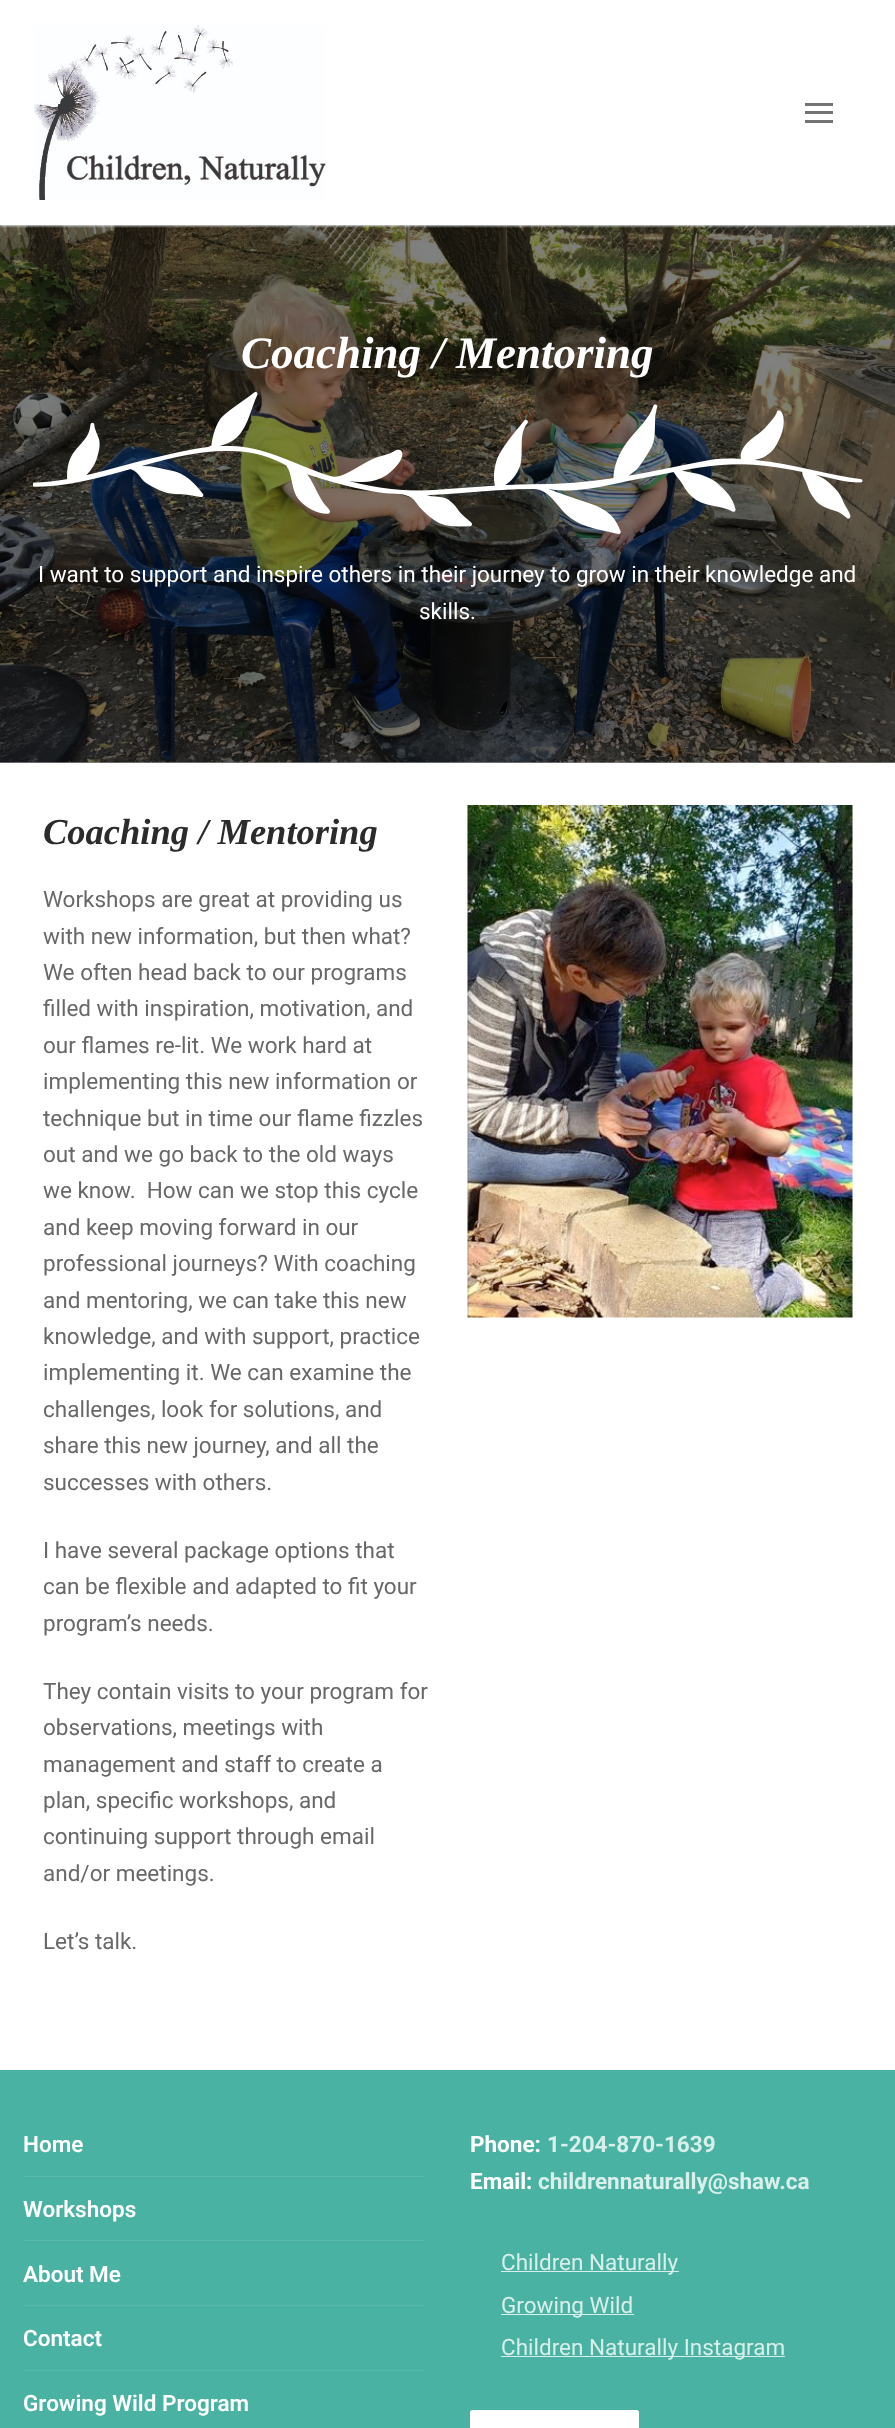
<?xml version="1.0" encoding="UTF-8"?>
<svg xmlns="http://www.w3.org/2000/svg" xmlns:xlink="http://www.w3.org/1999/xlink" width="895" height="2428">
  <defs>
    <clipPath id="clip1"><rect x="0" y="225" width="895" height="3" /></clipPath>
  </defs>
  <rect width="100%" height="100%" fill="#ffffff" />
  <rect y="762" width="895" height="1" fill="#808080" />
  <image x="0" y="225" width="895" height="538" xlink:href="image2.png" />
  <g clip-path="url(#clip1)">
    <rect y="1" width="895" height="225" fill="#e1e5ea" filter="blur(1px)" />
  </g>
  <image x="33" y="25" width="293" height="175" xlink:href="image1.png" />
  <rect x="805" y="111" width="28" height="3" fill="#737373" />
  <rect x="805" y="103" width="28" height="3" fill="#737373" />
  <rect x="805" y="120" width="28" height="3" fill="#737373" />
  <image x="33" y="391" width="830" height="143" xlink:href="image3.png" />
  <image x="467" y="805" width="386" height="513" xlink:href="image4.png" />
  <rect y="2070" width="895" height="358" fill="#4ab2a2" />
  <rect x="23" y="2176" width="402" height="1" fill="#58b8a9" />
  <rect x="23" y="2240" width="402" height="1" fill="#58b8a9" />
  <rect x="23" y="2305" width="402" height="1" fill="#58b8a9" />
  <rect x="23" y="2370" width="402" height="1" fill="#58b8a9" />
  <rect x="501" y="2271" width="178" height="1" fill="#d9efeb" />
  <rect x="501" y="2314" width="133" height="1" fill="#d9efeb" />
  <rect x="501" y="2356" width="284" height="1" fill="#d9efeb" />
  <rect x="470" y="2410" width="169" height="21" rx="2.5" fill="#ffffff" />
  <text x="241" y="368" style="font-family: Liberation Serif; font-size: 45px; font-weight: bold; font-style: italic; fill: #ffffff">Coaching / Mentoring</text>
  <text x="38" y="582" style="font-family: Roboto; font-size: 22.5px; fill: #ffffff">I want to support and inspire others in their journey to grow in their knowledge and</text>
  <text x="419" y="619" style="font-family: Roboto; font-size: 22.5px; fill: #ffffff">skills.</text>
  <text x="43" y="844" style="font-family: Liberation Serif; font-size: 36.5px; font-weight: bold; font-style: italic; fill: #2b2b2b">Coaching / Mentoring</text>
  <text x="43" y="907" style="font-family: Roboto; font-size: 22.5px; fill: #686868">Workshops are great at providing us</text>
  <text x="43" y="944" style="font-family: Roboto; font-size: 22.5px; fill: #686868">with new information, but then what?</text>
  <text x="43" y="980" style="font-family: Roboto; font-size: 22.5px; fill: #686868">We often head back to our programs</text>
  <text x="43" y="1016" style="font-family: Roboto; font-size: 22.5px; fill: #686868">filled with inspiration, motivation, and</text>
  <text x="43" y="1053" style="font-family: Roboto; font-size: 22.5px; fill: #686868">our flames re-lit. We work hard at</text>
  <text x="43" y="1089" style="font-family: Roboto; font-size: 22.5px; fill: #686868">implementing this new information or</text>
  <text x="43" y="1126" style="font-family: Roboto; font-size: 22.5px; fill: #686868">technique but in time our flame fizzles</text>
  <text x="43" y="1162" style="font-family: Roboto; font-size: 22.5px; fill: #686868">out and we go back to the old ways</text>
  <text x="43" y="1198" style="font-family: Roboto; font-size: 22.5px; fill: #686868" xml:space="preserve">we know.  How can we stop this cycle</text>
  <text x="43" y="1235" style="font-family: Roboto; font-size: 22.5px; fill: #686868">and keep moving forward in our</text>
  <text x="43" y="1271" style="font-family: Roboto; font-size: 22.5px; fill: #686868">professional journeys? With coaching</text>
  <text x="43" y="1308" style="font-family: Roboto; font-size: 22.5px; fill: #686868">and mentoring, we can take this new</text>
  <text x="43" y="1344" style="font-family: Roboto; font-size: 22.5px; fill: #686868">knowledge, and with support, practice</text>
  <text x="43" y="1380" style="font-family: Roboto; font-size: 22.5px; fill: #686868">implementing it. We can examine the</text>
  <text x="43" y="1417" style="font-family: Roboto; font-size: 22.5px; fill: #686868">challenges, look for solutions, and</text>
  <text x="43" y="1453" style="font-family: Roboto; font-size: 22.5px; fill: #686868">share this new journey, and all the</text>
  <text x="43" y="1490" style="font-family: Roboto; font-size: 22.5px; fill: #686868">successes with others.</text>
  <text x="43" y="1558" style="font-family: Roboto; font-size: 22.5px; fill: #686868">I have several package options that</text>
  <text x="43" y="1594" style="font-family: Roboto; font-size: 22.5px; fill: #686868">can be flexible and adapted to fit your</text>
  <text x="43" y="1631" style="font-family: Roboto; font-size: 22.5px; fill: #686868">program’s needs.</text>
  <text x="43" y="1699" style="font-family: Roboto; font-size: 22.5px; fill: #686868">They contain visits to your program for</text>
  <text x="43" y="1735" style="font-family: Roboto; font-size: 22.5px; fill: #686868">observations, meetings with</text>
  <text x="43" y="1772" style="font-family: Roboto; font-size: 22.5px; fill: #686868">management and staff to create a</text>
  <text x="43" y="1808" style="font-family: Roboto; font-size: 22.5px; fill: #686868">plan, specific workshops, and</text>
  <text x="43" y="1844" style="font-family: Roboto; font-size: 22.5px; fill: #686868">continuing support through email</text>
  <text x="43" y="1881" style="font-family: Roboto; font-size: 22.5px; fill: #686868">and/or meetings.</text>
  <text x="43" y="1949" style="font-family: Roboto; font-size: 22.5px; fill: #686868">Let’s talk.</text>
  <text x="23" y="2152" style="font-family: Roboto; font-size: 22.5px; font-weight: 600; fill: #ffffff">Home</text>
  <text x="23" y="2217" style="font-family: Roboto; font-size: 22.5px; font-weight: 600; fill: #ffffff">Workshops</text>
  <text x="23" y="2282" style="font-family: Roboto; font-size: 22.5px; font-weight: 600; fill: #ffffff">About Me</text>
  <text x="23" y="2346" style="font-family: Roboto; font-size: 22.5px; font-weight: 600; fill: #ffffff">Contact</text>
  <text x="23" y="2411" style="font-family: Roboto; font-size: 22.5px; font-weight: 600; fill: #ffffff">Growing Wild Program</text>
  <text x="470" y="2152" style="font-family: Roboto; font-size: 22.5px; font-weight: bold; fill: #ffffff">Phone:</text>
  <text x="547" y="2152" style="font-family: Roboto; font-size: 22.5px; font-weight: bold; fill: #d9efeb">1-204-870-1639</text>
  <text x="470" y="2189" style="font-family: Roboto; font-size: 22.5px; font-weight: bold; fill: #ffffff">Email:</text>
  <text x="538" y="2189" style="font-family: Roboto; font-size: 22.5px; font-weight: bold; fill: #d9efeb">childrennaturally@shaw.ca</text>
  <text x="501" y="2270" style="font-family: Roboto; font-size: 22.5px; fill: #d9efeb">Children Naturally</text>
  <text x="501" y="2313" style="font-family: Roboto; font-size: 22.5px; fill: #d9efeb">Growing Wild</text>
  <text x="501" y="2355" style="font-family: Roboto; font-size: 22.5px; fill: #d9efeb">Children Naturally Instagram</text>
</svg>
